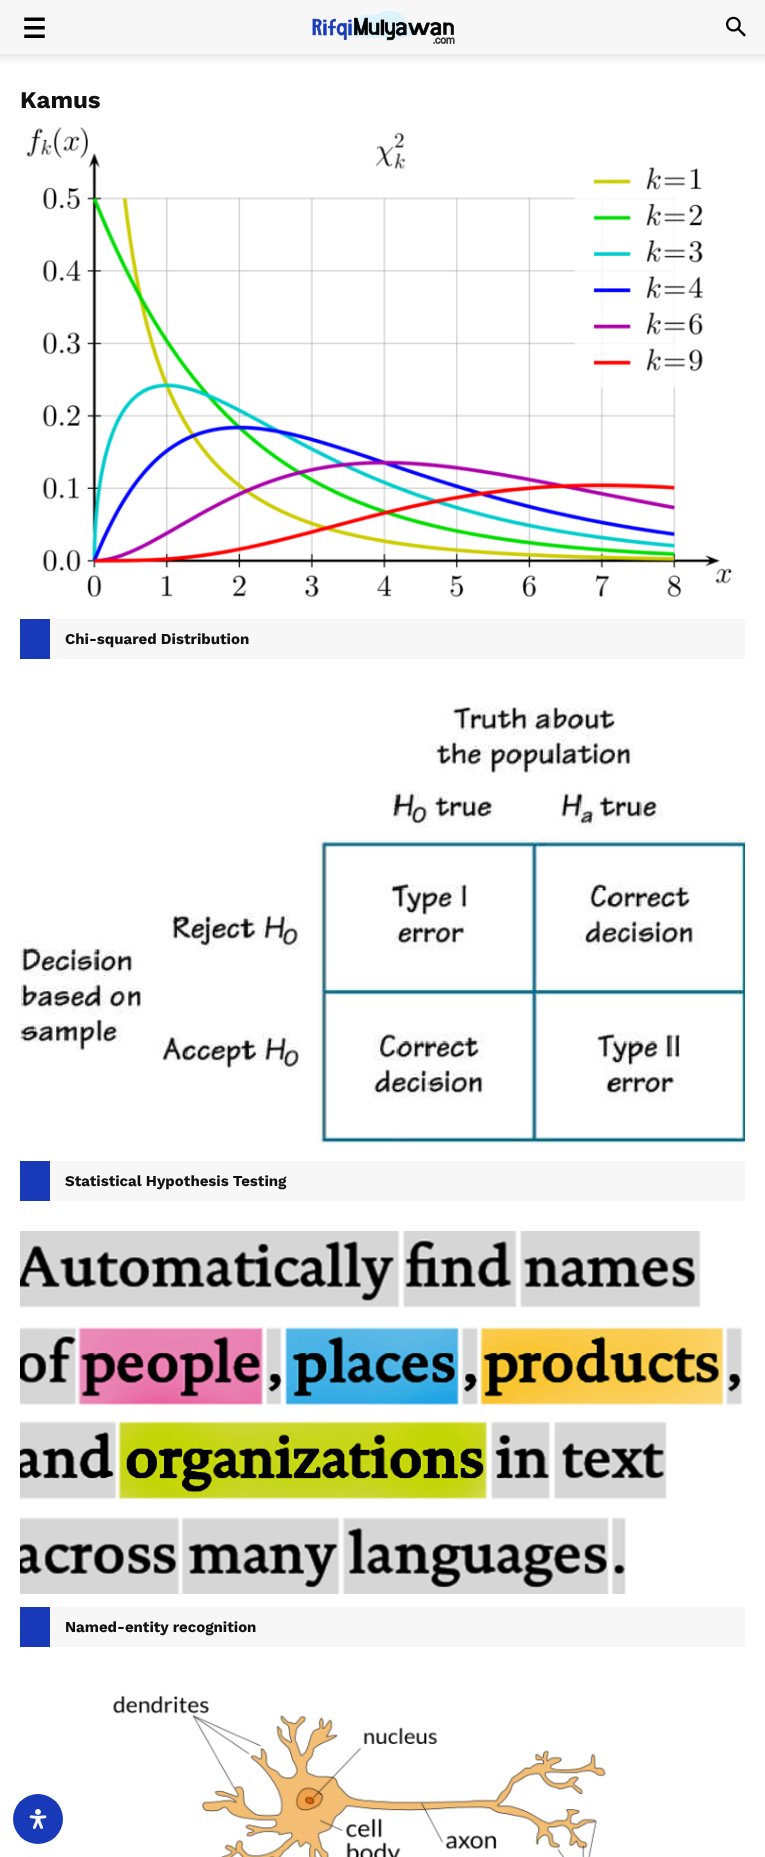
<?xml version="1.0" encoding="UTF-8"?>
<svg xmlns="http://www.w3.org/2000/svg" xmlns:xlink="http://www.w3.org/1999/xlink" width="765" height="1857">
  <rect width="100%" height="100%" fill="#ffffff" />
  <rect width="765" height="54" fill="#f7f7f7" />
  <image x="312" y="11" width="143" height="33" xlink:href="image1.png" />
  <image x="726" y="16" width="20" height="21" xlink:href="image2.png" />
  <image x="0" y="54" width="765" height="9" xlink:href="image3.png" />
  <image x="26" y="127" width="706" height="470" xlink:href="image4.png" />
  <rect x="50" y="619" width="695" height="40" fill="#f7f7f7" />
  <rect x="20" y="619" width="30" height="40" fill="#183ab9" />
  <image x="20" y="707" width="725" height="438" xlink:href="image5.png" />
  <rect x="50" y="1161" width="695" height="40" fill="#f7f7f7" />
  <rect x="20" y="1161" width="30" height="40" fill="#183ab9" />
  <image x="20" y="1231" width="723" height="363" xlink:href="image6.png" />
  <rect x="50" y="1607" width="695" height="40" fill="#f7f7f7" />
  <rect x="20" y="1607" width="30" height="40" fill="#183ab9" />
  <image x="112" y="1695" width="494" height="162" xlink:href="image7.png" />
  <circle cx="38" cy="1819" r="25" fill="#183ab9" />
  <image x="29" y="1809" width="18" height="20" xlink:href="image8.png" />
  <text x="22" y="38" style="font-family: DejaVu Sans; font-size: 27px; font-weight: bold; fill: #000000">☰</text>
  <text x="20" y="108" style="font-family: Work Sans; font-size: 24px; font-weight: bold; fill: #111111">Kamus</text>
  <text x="65" y="644" style="font-family: Work Sans; font-size: 15px; font-weight: bold; fill: #111111">Chi-squared Distribution</text>
  <text x="65" y="1186" style="font-family: Work Sans; font-size: 15px; font-weight: bold; fill: #111111">Statistical Hypothesis Testing</text>
  <text x="65" y="1632" style="font-family: Work Sans; font-size: 15px; font-weight: bold; fill: #111111">Named-entity recognition</text>
</svg>
